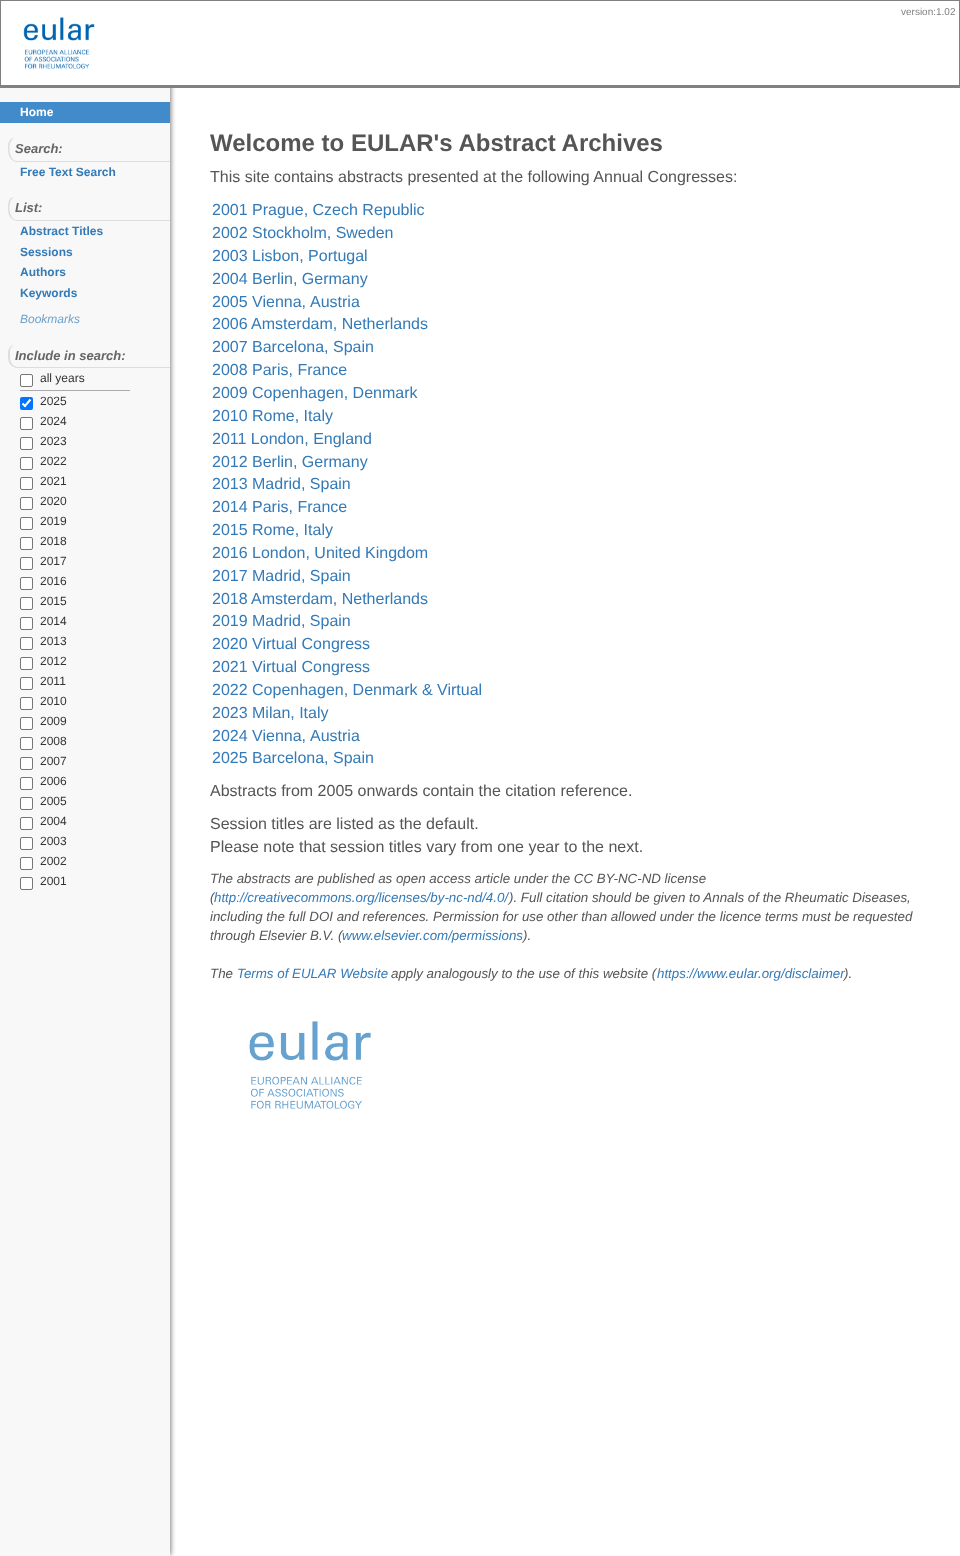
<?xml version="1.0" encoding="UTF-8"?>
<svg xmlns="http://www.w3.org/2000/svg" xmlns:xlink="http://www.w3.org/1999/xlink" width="960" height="1556">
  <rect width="100%" height="100%" fill="#ffffff" />
  <rect x="1" y="-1" width="170" height="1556" fill="#808080" filter="blur(2.5px)" />
  <rect width="960" height="88" fill="#808080" />
  <rect x="1" y="1" width="958" height="84" fill="#ffffff" />
  <image x="23" y="17" width="72" height="52" xlink:href="image1.png" />
  <rect y="88" width="170" height="1468" fill="#f8f8f8" />
  <rect y="102" width="170" height="21" fill="#428bca" />
  <path d="M 15 138 h 155 v 24 h -154 c -7 -2 -8 -8 -8 -14 c 0 -5 1 -10 7 -10 z m 0 0 h 155 v 23 h -154 c -9 -2 -8 -23 -1 -23 z" fill="#dddddd" fill-rule="evenodd" />
  <path d="M 15 197 h 155 v 24 h -154 c -7 -2 -8 -8 -8 -14 c 0 -5 1 -10 7 -10 z m 0 0 h 155 v 23 h -154 c -9 -2 -8 -23 -1 -23 z" fill="#dddddd" fill-rule="evenodd" />
  <path d="M 15 345 h 155 v 23 h -154 c -7 -2 -8 -7 -8 -13 c 0 -5 1 -10 7 -10 z m 0 0 h 155 v 22 h -152 c -4 0 -8 -4 -8 -9 v -6 c 0 -4 2 -7 5 -7 z" fill="#dddddd" fill-rule="evenodd" />
  <rect x="20" y="390" width="110" height="1" fill="#aaaaaa" />
  <rect x="20.5" y="374.5" width="12" height="12" rx="1.5" fill="#ffffff" stroke="#767676" />
  <rect x="20" y="397" width="13" height="13" rx="2" fill="#0075ff" />
  <path d="M 22.5 403.5 l 2.5 2.5 l 5.5 -6.5" fill="none" stroke="#ffffff" stroke-width="2.1" />
  <rect x="20.5" y="417.5" width="12" height="12" rx="1.5" fill="#ffffff" stroke="#767676" />
  <rect x="20.5" y="437.5" width="12" height="12" rx="1.5" fill="#ffffff" stroke="#767676" />
  <rect x="20.5" y="457.5" width="12" height="12" rx="1.5" fill="#ffffff" stroke="#767676" />
  <rect x="20.5" y="477.5" width="12" height="12" rx="1.5" fill="#ffffff" stroke="#767676" />
  <rect x="20.5" y="497.5" width="12" height="12" rx="1.5" fill="#ffffff" stroke="#767676" />
  <rect x="20.5" y="517.5" width="12" height="12" rx="1.5" fill="#ffffff" stroke="#767676" />
  <rect x="20.5" y="537.5" width="12" height="12" rx="1.5" fill="#ffffff" stroke="#767676" />
  <rect x="20.5" y="557.5" width="12" height="12" rx="1.5" fill="#ffffff" stroke="#767676" />
  <rect x="20.5" y="577.5" width="12" height="12" rx="1.5" fill="#ffffff" stroke="#767676" />
  <rect x="20.5" y="597.5" width="12" height="12" rx="1.5" fill="#ffffff" stroke="#767676" />
  <rect x="20.5" y="617.5" width="12" height="12" rx="1.5" fill="#ffffff" stroke="#767676" />
  <rect x="20.5" y="637.5" width="12" height="12" rx="1.5" fill="#ffffff" stroke="#767676" />
  <rect x="20.5" y="657.5" width="12" height="12" rx="1.5" fill="#ffffff" stroke="#767676" />
  <rect x="20.5" y="677.5" width="12" height="12" rx="1.5" fill="#ffffff" stroke="#767676" />
  <rect x="20.5" y="697.5" width="12" height="12" rx="1.5" fill="#ffffff" stroke="#767676" />
  <rect x="20.5" y="717.5" width="12" height="12" rx="1.5" fill="#ffffff" stroke="#767676" />
  <rect x="20.5" y="737.5" width="12" height="12" rx="1.5" fill="#ffffff" stroke="#767676" />
  <rect x="20.5" y="757.5" width="12" height="12" rx="1.5" fill="#ffffff" stroke="#767676" />
  <rect x="20.5" y="777.5" width="12" height="12" rx="1.5" fill="#ffffff" stroke="#767676" />
  <rect x="20.5" y="797.5" width="12" height="12" rx="1.5" fill="#ffffff" stroke="#767676" />
  <rect x="20.5" y="817.5" width="12" height="12" rx="1.5" fill="#ffffff" stroke="#767676" />
  <rect x="20.5" y="837.5" width="12" height="12" rx="1.5" fill="#ffffff" stroke="#767676" />
  <rect x="20.5" y="857.5" width="12" height="12" rx="1.5" fill="#ffffff" stroke="#767676" />
  <rect x="20.5" y="877.5" width="12" height="12" rx="1.5" fill="#ffffff" stroke="#767676" />
  <image x="249" y="1021" width="122" height="88" xlink:href="image2.png" />
  <text x="901" y="15" style="font-family: Liberation Sans; font-size: 10px; fill: #808080">version:1.02</text>
  <text x="20" y="116" style="font-family: Liberation Sans; font-size: 12px; font-weight: bold; fill: #ffffff">Home</text>
  <text x="15" y="153" style="font-family: Liberation Sans; font-size: 13px; font-weight: bold; font-style: italic; fill: #666666">Search:</text>
  <text x="20" y="176" style="font-family: Liberation Sans; font-size: 12px; font-weight: bold; fill: #337ab7">Free Text Search</text>
  <text x="15" y="212" style="font-family: Liberation Sans; font-size: 13px; font-weight: bold; font-style: italic; fill: #666666">List:</text>
  <text x="20" y="235" style="font-family: Liberation Sans; font-size: 12px; font-weight: bold; fill: #337ab7">Abstract Titles</text>
  <text x="20" y="256" style="font-family: Liberation Sans; font-size: 12px; font-weight: bold; fill: #337ab7">Sessions</text>
  <text x="20" y="276" style="font-family: Liberation Sans; font-size: 12px; font-weight: bold; fill: #337ab7">Authors</text>
  <text x="20" y="297" style="font-family: Liberation Sans; font-size: 12px; font-weight: bold; fill: #337ab7">Keywords</text>
  <text x="20" y="323" style="font-family: Liberation Sans; font-size: 12px; font-style: italic; fill: #6ea0cb">Bookmarks</text>
  <text x="15" y="360" style="font-family: Liberation Sans; font-size: 13px; font-weight: bold; font-style: italic; fill: #666666">Include in search:</text>
  <text x="40" y="382" style="font-family: Liberation Sans; font-size: 12px; fill: #333333">all years</text>
  <text x="40" y="405" style="font-family: Liberation Sans; font-size: 12px; fill: #333333">2025</text>
  <text x="40" y="425" style="font-family: Liberation Sans; font-size: 12px; fill: #333333">2024</text>
  <text x="40" y="445" style="font-family: Liberation Sans; font-size: 12px; fill: #333333">2023</text>
  <text x="40" y="465" style="font-family: Liberation Sans; font-size: 12px; fill: #333333">2022</text>
  <text x="40" y="485" style="font-family: Liberation Sans; font-size: 12px; fill: #333333">2021</text>
  <text x="40" y="505" style="font-family: Liberation Sans; font-size: 12px; fill: #333333">2020</text>
  <text x="40" y="525" style="font-family: Liberation Sans; font-size: 12px; fill: #333333">2019</text>
  <text x="40" y="545" style="font-family: Liberation Sans; font-size: 12px; fill: #333333">2018</text>
  <text x="40" y="565" style="font-family: Liberation Sans; font-size: 12px; fill: #333333">2017</text>
  <text x="40" y="585" style="font-family: Liberation Sans; font-size: 12px; fill: #333333">2016</text>
  <text x="40" y="605" style="font-family: Liberation Sans; font-size: 12px; fill: #333333">2015</text>
  <text x="40" y="625" style="font-family: Liberation Sans; font-size: 12px; fill: #333333">2014</text>
  <text x="40" y="645" style="font-family: Liberation Sans; font-size: 12px; fill: #333333">2013</text>
  <text x="40" y="665" style="font-family: Liberation Sans; font-size: 12px; fill: #333333">2012</text>
  <text x="40" y="685" style="font-family: Liberation Sans; font-size: 12px; fill: #333333">2011</text>
  <text x="40" y="705" style="font-family: Liberation Sans; font-size: 12px; fill: #333333">2010</text>
  <text x="40" y="725" style="font-family: Liberation Sans; font-size: 12px; fill: #333333">2009</text>
  <text x="40" y="745" style="font-family: Liberation Sans; font-size: 12px; fill: #333333">2008</text>
  <text x="40" y="765" style="font-family: Liberation Sans; font-size: 12px; fill: #333333">2007</text>
  <text x="40" y="785" style="font-family: Liberation Sans; font-size: 12px; fill: #333333">2006</text>
  <text x="40" y="805" style="font-family: Liberation Sans; font-size: 12px; fill: #333333">2005</text>
  <text x="40" y="825" style="font-family: Liberation Sans; font-size: 12px; fill: #333333">2004</text>
  <text x="40" y="845" style="font-family: Liberation Sans; font-size: 12px; fill: #333333">2003</text>
  <text x="40" y="865" style="font-family: Liberation Sans; font-size: 12px; fill: #333333">2002</text>
  <text x="40" y="885" style="font-family: Liberation Sans; font-size: 12px; fill: #333333">2001</text>
  <text x="210" y="151" style="font-family: Liberation Sans; font-size: 24px; font-weight: bold; fill: #555555">Welcome to EULAR's Abstract Archives</text>
  <text x="210" y="182" style="font-family: Liberation Sans; font-size: 16px; fill: #555555">This site contains abstracts presented at the following Annual Congresses:</text>
  <text x="212" y="215" style="font-family: Liberation Sans; font-size: 16px; fill: #337ab7">2001 Prague, Czech Republic</text>
  <text x="212" y="238" style="font-family: Liberation Sans; font-size: 16px; fill: #337ab7">2002 Stockholm, Sweden</text>
  <text x="212" y="261" style="font-family: Liberation Sans; font-size: 16px; fill: #337ab7">2003 Lisbon, Portugal</text>
  <text x="212" y="284" style="font-family: Liberation Sans; font-size: 16px; fill: #337ab7">2004 Berlin, Germany</text>
  <text x="212" y="307" style="font-family: Liberation Sans; font-size: 16px; fill: #337ab7">2005 Vienna,</text>
  <text x="310" y="307" style="font-family: Liberation Sans; font-size: 16px; fill: #337ab7">Austria</text>
  <text x="212" y="329" style="font-family: Liberation Sans; font-size: 16px; fill: #337ab7">2006</text>
  <text x="251" y="329" style="font-family: Liberation Sans; font-size: 16px; fill: #337ab7">Amsterdam, Netherlands</text>
  <text x="212" y="352" style="font-family: Liberation Sans; font-size: 16px; fill: #337ab7">2007 Barcelona, Spain</text>
  <text x="212" y="375" style="font-family: Liberation Sans; font-size: 16px; fill: #337ab7">2008 Paris, France</text>
  <text x="212" y="398" style="font-family: Liberation Sans; font-size: 16px; fill: #337ab7">2009 Copenhagen, Denmark</text>
  <text x="212" y="421" style="font-family: Liberation Sans; font-size: 16px; fill: #337ab7">2010 Rome, Italy</text>
  <text x="212" y="444" style="font-family: Liberation Sans; font-size: 16px; fill: #337ab7">2011 London, England</text>
  <text x="212" y="467" style="font-family: Liberation Sans; font-size: 16px; fill: #337ab7">2012 Berlin, Germany</text>
  <text x="212" y="489" style="font-family: Liberation Sans; font-size: 16px; fill: #337ab7">2013 Madrid, Spain</text>
  <text x="212" y="512" style="font-family: Liberation Sans; font-size: 16px; fill: #337ab7">2014 Paris, France</text>
  <text x="212" y="535" style="font-family: Liberation Sans; font-size: 16px; fill: #337ab7">2015 Rome, Italy</text>
  <text x="212" y="558" style="font-family: Liberation Sans; font-size: 16px; fill: #337ab7">2016 London, United Kingdom</text>
  <text x="212" y="581" style="font-family: Liberation Sans; font-size: 16px; fill: #337ab7">2017 Madrid, Spain</text>
  <text x="212" y="604" style="font-family: Liberation Sans; font-size: 16px; fill: #337ab7">2018</text>
  <text x="251" y="604" style="font-family: Liberation Sans; font-size: 16px; fill: #337ab7">Amsterdam, Netherlands</text>
  <text x="212" y="626" style="font-family: Liberation Sans; font-size: 16px; fill: #337ab7">2019 Madrid, Spain</text>
  <text x="212" y="649" style="font-family: Liberation Sans; font-size: 16px; fill: #337ab7">2020 Virtual Congress</text>
  <text x="212" y="672" style="font-family: Liberation Sans; font-size: 16px; fill: #337ab7">2021 Virtual Congress</text>
  <text x="212" y="695" style="font-family: Liberation Sans; font-size: 16px; fill: #337ab7">2022 Copenhagen, Denmark &amp; Virtual</text>
  <text x="212" y="718" style="font-family: Liberation Sans; font-size: 16px; fill: #337ab7">2023 Milan, Italy</text>
  <text x="212" y="741" style="font-family: Liberation Sans; font-size: 16px; fill: #337ab7">2024 Vienna,</text>
  <text x="310" y="741" style="font-family: Liberation Sans; font-size: 16px; fill: #337ab7">Austria</text>
  <text x="212" y="763" style="font-family: Liberation Sans; font-size: 16px; fill: #337ab7">2025 Barcelona, Spain</text>
  <text x="210" y="796" style="font-family: Liberation Sans; font-size: 16px; fill: #555555">Abstracts from 2005 onwards contain the citation reference.</text>
  <text x="210" y="829" style="font-family: Liberation Sans; font-size: 16px; fill: #555555">Session titles are listed as the default.</text>
  <text x="210" y="852" style="font-family: Liberation Sans; font-size: 16px; fill: #555555">Please note that session titles vary from one year to the next.</text>
  <text x="210" y="883" style="font-family: Liberation Sans; font-size: 13.33px; font-style: italic; fill: #555555">The abstracts are published as open access article under the CC BY-NC-ND license</text>
  <text x="210" y="902" style="font-family: Liberation Sans; font-size: 13.33px; font-style: italic; fill: #555555">(</text>
  <text x="214" y="902" style="font-family: Liberation Sans; font-size: 13.33px; font-style: italic; fill: #337ab7">http://creativecommons.org/licenses/by-nc-nd/4.0/</text>
  <text x="509" y="902" style="font-family: Liberation Sans; font-size: 13.33px; font-style: italic; fill: #555555">). Full citation should be given to Annals of the Rheumatic Diseases,</text>
  <text x="210" y="921" style="font-family: Liberation Sans; font-size: 13.33px; font-style: italic; fill: #555555">including the full DOI and references. Permission for use other than allowed under the licence terms must be requested</text>
  <text x="210" y="940" style="font-family: Liberation Sans; font-size: 13.33px; font-style: italic; fill: #555555">through Elsevier B.V. (</text>
  <text x="342" y="940" style="font-family: Liberation Sans; font-size: 13.33px; font-style: italic; fill: #337ab7">www.elsevier.com/permissions</text>
  <text x="523" y="940" style="font-family: Liberation Sans; font-size: 13.33px; font-style: italic; fill: #555555">).</text>
  <text x="210" y="978" style="font-family: Liberation Sans; font-size: 13.33px; font-style: italic; fill: #555555">The</text>
  <text x="237" y="978" style="font-family: Liberation Sans; font-size: 13.33px; font-style: italic; fill: #337ab7">Terms of EULAR Website</text>
  <text x="391" y="978" style="font-family: Liberation Sans; font-size: 13.33px; font-style: italic; fill: #555555">apply analogously to the use of this website (</text>
  <text x="657" y="978" style="font-family: Liberation Sans; font-size: 13.33px; font-style: italic; fill: #337ab7">https://www.eular.org/disclaimer</text>
  <text x="844" y="978" style="font-family: Liberation Sans; font-size: 13.33px; font-style: italic; fill: #555555">).</text>
</svg>
